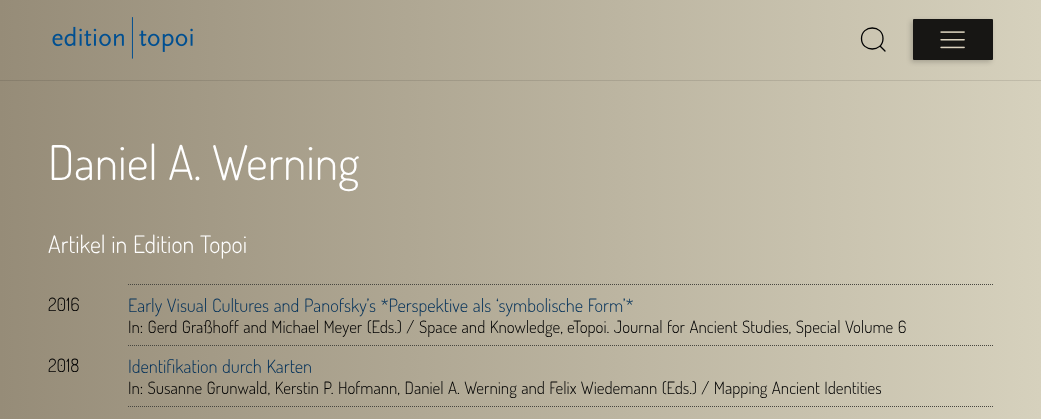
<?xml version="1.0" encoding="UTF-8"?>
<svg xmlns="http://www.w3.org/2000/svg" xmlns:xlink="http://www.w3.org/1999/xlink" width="1041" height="419">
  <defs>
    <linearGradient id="g1" gradientUnits="userSpaceOnUse" x1="0" y1="210" x2="1041" y2="209"><stop offset="0" stop-color="#968c78" /><stop offset="1" stop-color="#d6d1bd" /></linearGradient>
    <linearGradient id="g2" gradientUnits="userSpaceOnUse" x1="0" y1="40" x2="1041" y2="40"><stop offset="0" stop-color="#968c78" /><stop offset="1" stop-color="#d6d1bd" /></linearGradient>
    <linearGradient id="g3" gradientUnits="userSpaceOnUse" x1="0" y1="40" x2="1041" y2="40"><stop offset="0" stop-color="#877e6c" /><stop offset="1" stop-color="#c1bcaa" /></linearGradient>
  </defs>
  <rect width="100%" height="100%" fill="#ffffff" />
  <rect y="81" width="1041" height="338" fill="url(#g1)" />
  <rect width="1041" height="80" fill="url(#g2)" />
  <rect y="80" width="1041" height="1" fill="url(#g3)" />
  <image x="52" y="17" width="141" height="42" xlink:href="image1.png" />
  <path d="M 883 38.5 c 0 14 -21.5 14 -21.5 0 c 0 -14 21.5 -14 21.5 0 z m -2.5 8 l 4.5 4.5" fill="none" stroke="#000000" stroke-width="1.3" stroke-linecap="round" />
  <rect x="911" y="21" width="80" height="41" rx="1" fill="#000000" fill-opacity="0.2" filter="blur(2.5px)" />
  <rect x="913" y="19" width="80" height="41" rx="1" fill="#171614" />
  <image x="940" y="31" width="25" height="18" xlink:href="image2.png" />
  <path d="M 128 284.5 h 865" fill="none" stroke="#484740" stroke-dasharray="1 1" />
  <path d="M 128 345.5 h 865" fill="none" stroke="#484740" stroke-dasharray="1 1" />
  <path d="M 128 406.5 h 865" fill="none" stroke="#484740" stroke-dasharray="1 1" />
  <text x="48" y="180" word-spacing="1" style="font-family: Dosis; font-size: 47.75px; font-weight: 300; fill: #ffffff">Daniel A. Werning</text>
  <text x="48" y="253" word-spacing="1" style="font-family: Dosis; font-size: 24px; font-weight: 300; fill: #ffffff">Artikel in Edition Topoi</text>
  <text x="48" y="311" style="font-family: Dosis; font-size: 18.4px; font-weight: 300; fill: #000000">2016</text>
  <text x="128" y="312" word-spacing="1" style="font-family: Dosis; font-size: 18.4px; font-weight: 300; fill: #03315a">Early Visual Cultures and Panofsky’s *Perspektive als ‘symbolische Form’*</text>
  <text x="128" y="333" word-spacing="1" style="font-family: Dosis; font-size: 17px; font-weight: 300; fill: #000000">In: Gerd Graßhoff and Michael Meyer (Eds.) /</text>
  <text x="419" y="333" word-spacing="1" style="font-family: Dosis; font-size: 17px; font-weight: 300; fill: #000000">Space and Knowledge,</text>
  <text x="567" y="333" word-spacing="1" style="font-family: Dosis; font-size: 17px; font-weight: 300; fill: #000000">eTopoi. Journal for Ancient Studies, Special Volume 6</text>
  <text x="48" y="372" style="font-family: Dosis; font-size: 18.4px; font-weight: 300; fill: #000000">2018</text>
  <text x="128" y="373" word-spacing="1" style="font-family: Dosis; font-size: 18.4px; font-weight: 300; fill: #03315a">Identifikation durch Karten</text>
  <text x="128" y="394" word-spacing="1" style="font-family: Dosis; font-size: 17px; font-weight: 300; fill: #000000">In: Susanne Grunwald, Kerstin P. Hofmann, Daniel A. Werning and Felix Wiedemann (Eds.) / Mapping Ancient Identities</text>
</svg>
